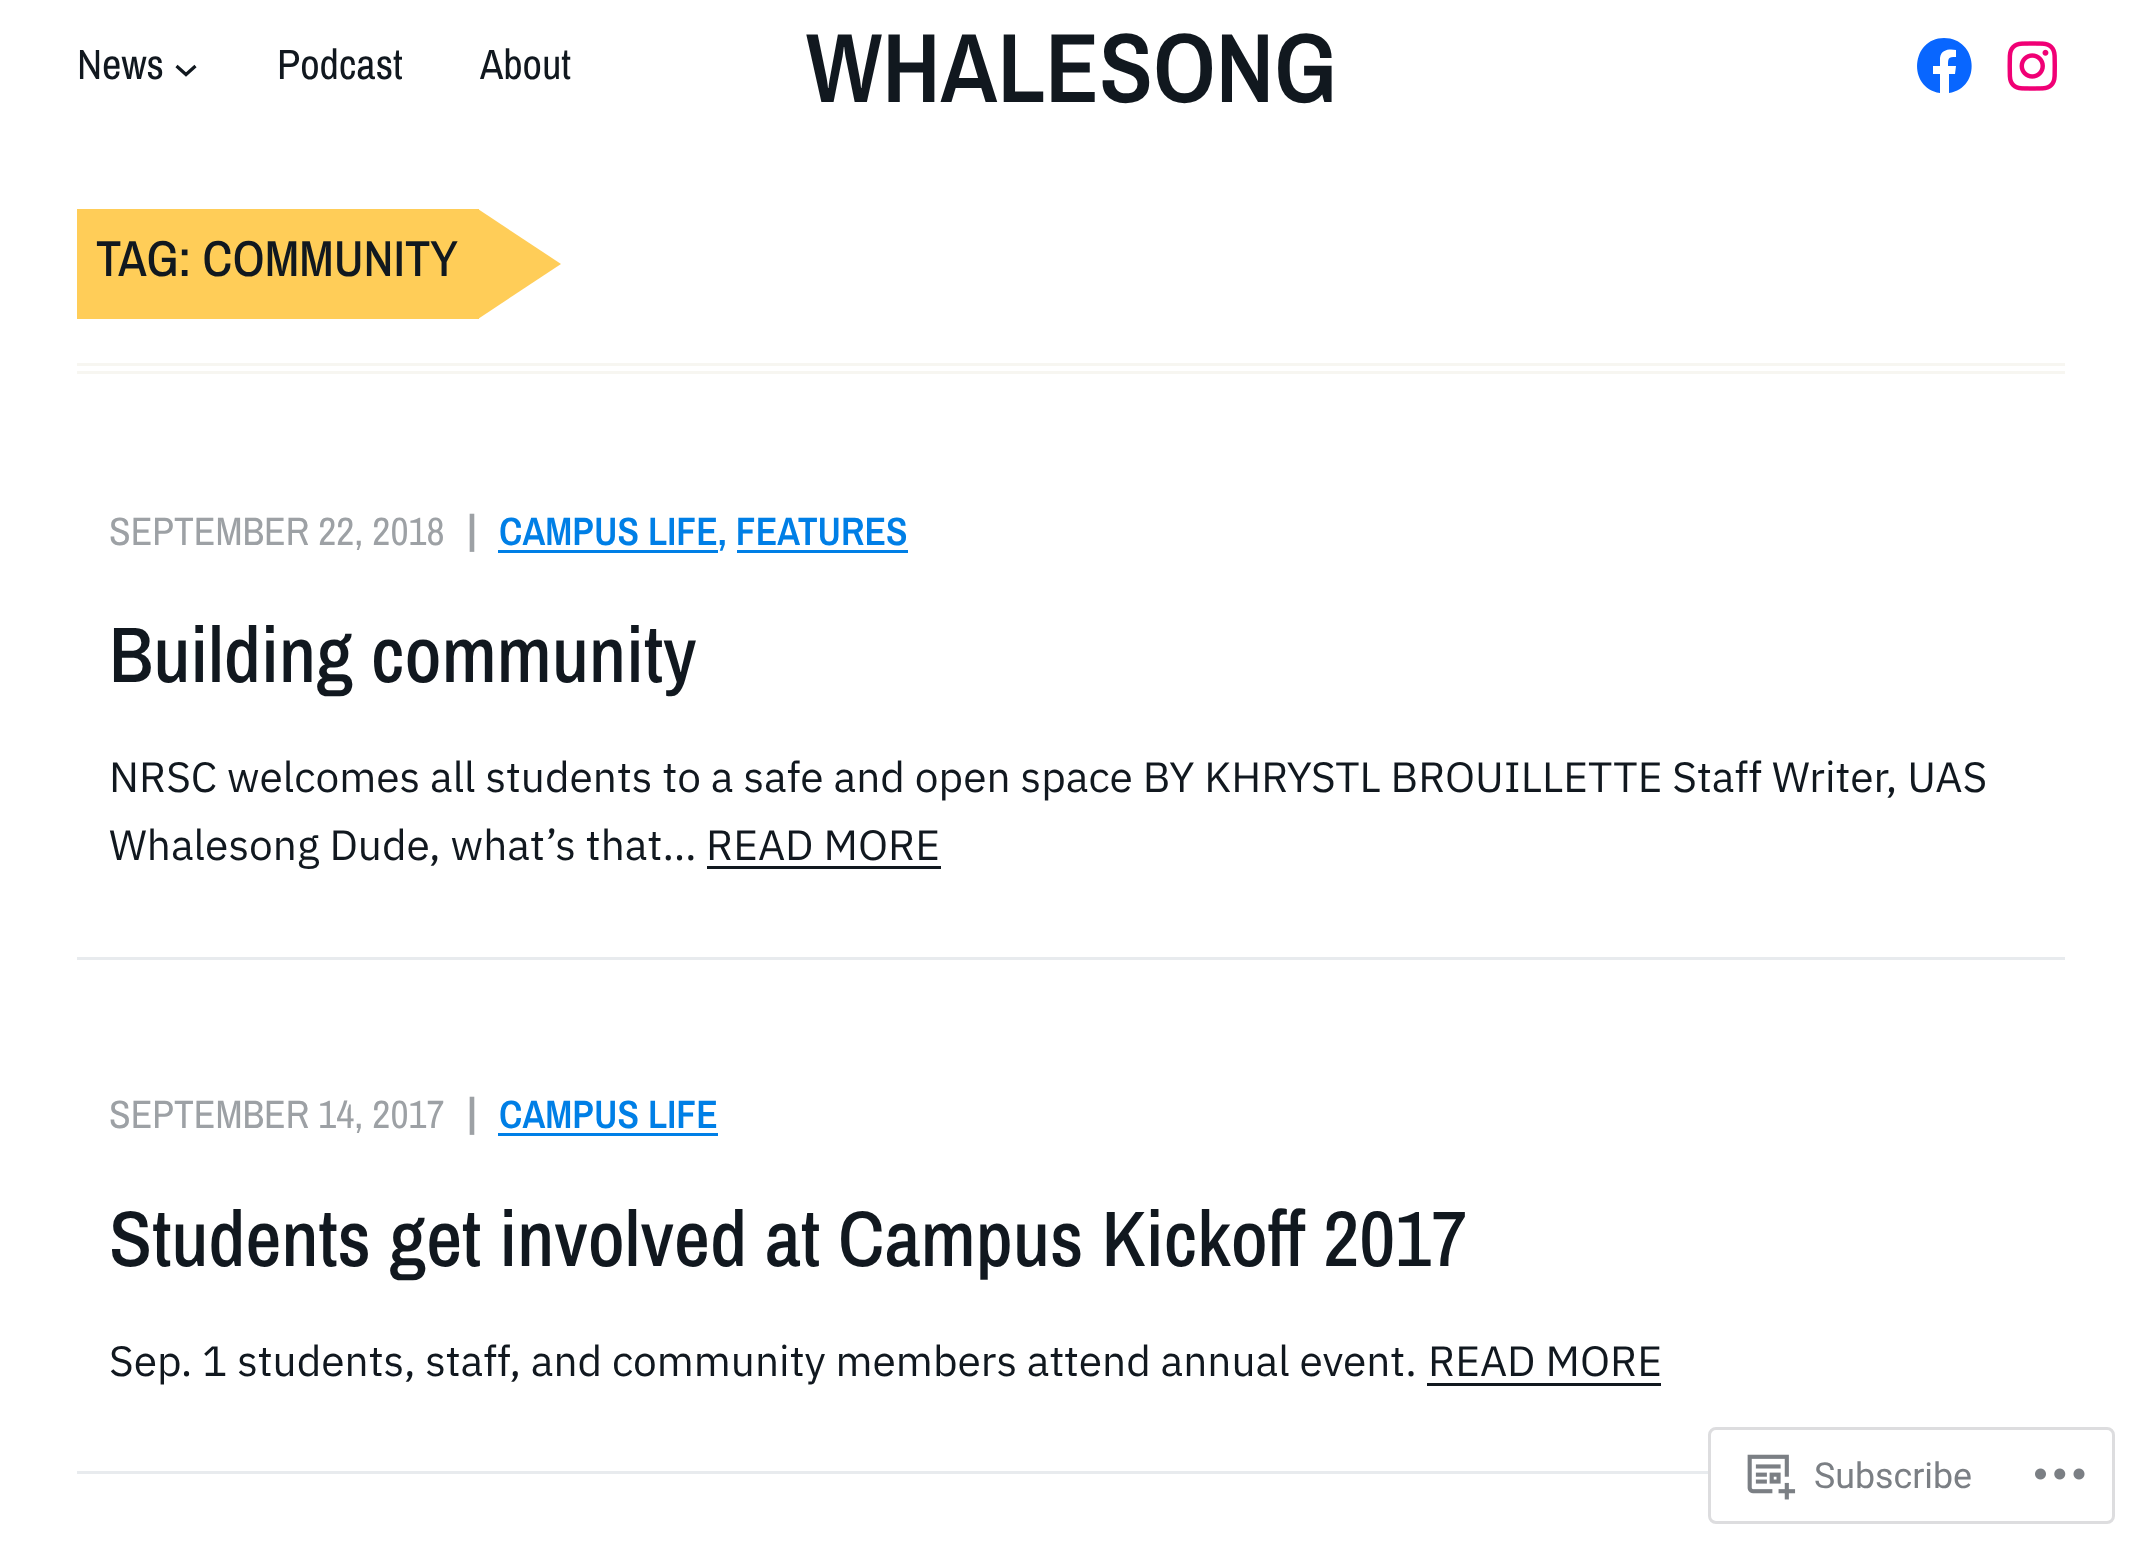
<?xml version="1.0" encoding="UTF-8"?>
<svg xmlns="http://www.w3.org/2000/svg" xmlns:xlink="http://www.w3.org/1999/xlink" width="2140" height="1551">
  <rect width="100%" height="100%" fill="#ffffff" />
  <path d="M 176.5 66 l 9.5 8.5 l 9.5 -8.5" fill="none" stroke="#11181f" stroke-width="3.2" />
  <path d="M 1944 38 c -33 0 -37 50 -4 55 v -19 h -7 v -8 h 7 v -8 c 1 -9 10 -9 16 -8 v 7 c -8 0 -8 1 -8 9 h 8 l -1 8 h -6 v 19 c 33 -5 29 -55 -5 -55 z" fill="#0866ff" />
  <image x="2007" y="41" width="50" height="50" xlink:href="image1.png" />
  <rect x="77" y="209" width="402" height="110" fill="#ffcd58" />
  <path d="M 478 319 v -110 l 83 55 z" fill="#ffcd58" />
  <rect x="77" y="363" width="1988" height="3" fill="#f7f6f1" />
  <rect x="77" y="371" width="1988" height="3" fill="#f7f6f1" />
  <rect x="77" y="957" width="1988" height="3" fill="#e8ebee" />
  <rect x="498" y="550" width="220" height="3" fill="#007fe6" />
  <rect x="737" y="550" width="171" height="3" fill="#007fe6" />
  <rect x="707" y="866" width="234" height="3" fill="#11181f" />
  <rect x="77" y="1471" width="1988" height="3" fill="#e8ebee" />
  <rect x="498" y="1133" width="220" height="3" fill="#007fe6" />
  <rect x="1427" y="1383" width="234" height="3" fill="#11181f" />
  <rect x="1709.5" y="1428.5" width="404" height="94" rx="6.5" fill="#ffffff" fill-opacity="0.98" stroke="#dddddf" stroke-width="3" />
  <image x="1747" y="1454" width="49" height="46" xlink:href="image2.png" />
  <image x="2035" y="1468" width="50" height="12" xlink:href="image3.png" />
  <text x="77" y="79" style="font-family: Archivo Narrow; font-size: 42.45px; fill: #11181f">News</text>
  <text x="277" y="79" style="font-family: Archivo Narrow; font-size: 42.45px; fill: #11181f">Podcast</text>
  <text x="480" y="79" style="font-family: Archivo Narrow; font-size: 42.45px; fill: #11181f">About</text>
  <text x="806" y="102" style="font-family: Archivo Narrow; font-size: 98.5px; font-weight: 600; fill: #11181f">WHALESONG</text>
  <text x="96" y="276" style="font-family: Archivo Narrow; font-size: 50.5px; font-weight: 500; fill: #11181f">TAG: COMMUNITY</text>
  <text x="109" y="545" style="font-family: Archivo Narrow; font-size: 39.6px; fill: #9da1a5">SEPTEMBER 22, 2018</text>
  <text x="464" y="546" style="font-family: IBM Plex Sans; font-size: 42.45px; font-weight: 600; fill: #9da1a5">|</text>
  <text x="499" y="545" style="font-family: Archivo Narrow; font-size: 39.6px; font-weight: 600; fill: #007fe6">CAMPUS LIFE, FEATURES</text>
  <text x="109" y="682" style="font-family: Archivo Narrow; font-size: 78.9px; font-weight: 500; fill: #11181f">Building community</text>
  <text x="109" y="792" word-spacing="-0.1" style="font-family: IBM Plex Sans; font-size: 42.45px; fill: #11181f">NRSC welcomes all students to a safe and open space BY KHRYSTL BROUILLETTE Staff Writer, UAS</text>
  <text x="109" y="860" style="font-family: IBM Plex Sans; font-size: 42.45px; fill: #11181f">Whalesong Dude, what’s that…</text>
  <text x="706" y="860" style="font-family: IBM Plex Sans; font-size: 42.45px; fill: #11181f">READ MORE</text>
  <text x="109" y="1128" style="font-family: Archivo Narrow; font-size: 39.6px; fill: #9da1a5">SEPTEMBER 14, 2017</text>
  <text x="464" y="1129" style="font-family: IBM Plex Sans; font-size: 42.45px; font-weight: 600; fill: #9da1a5">|</text>
  <text x="499" y="1128" style="font-family: Archivo Narrow; font-size: 39.6px; font-weight: 600; fill: #007fe6">CAMPUS LIFE</text>
  <text x="109" y="1266" style="font-family: Archivo Narrow; font-size: 78.9px; font-weight: 500; fill: #11181f">Students get involved at Campus Kickoff 2017</text>
  <text x="109" y="1376" word-spacing="-0.25" style="font-family: IBM Plex Sans; font-size: 42.45px; fill: #11181f">Sep. 1 students, staff, and community members attend annual event.</text>
  <text x="1428" y="1376" style="font-family: IBM Plex Sans; font-size: 42.45px; fill: #11181f">READ MORE</text>
  <text x="1814" y="1488" style="font-family: Roboto; font-size: 35.75px; fill: #7b7f84">Subscribe</text>
</svg>
